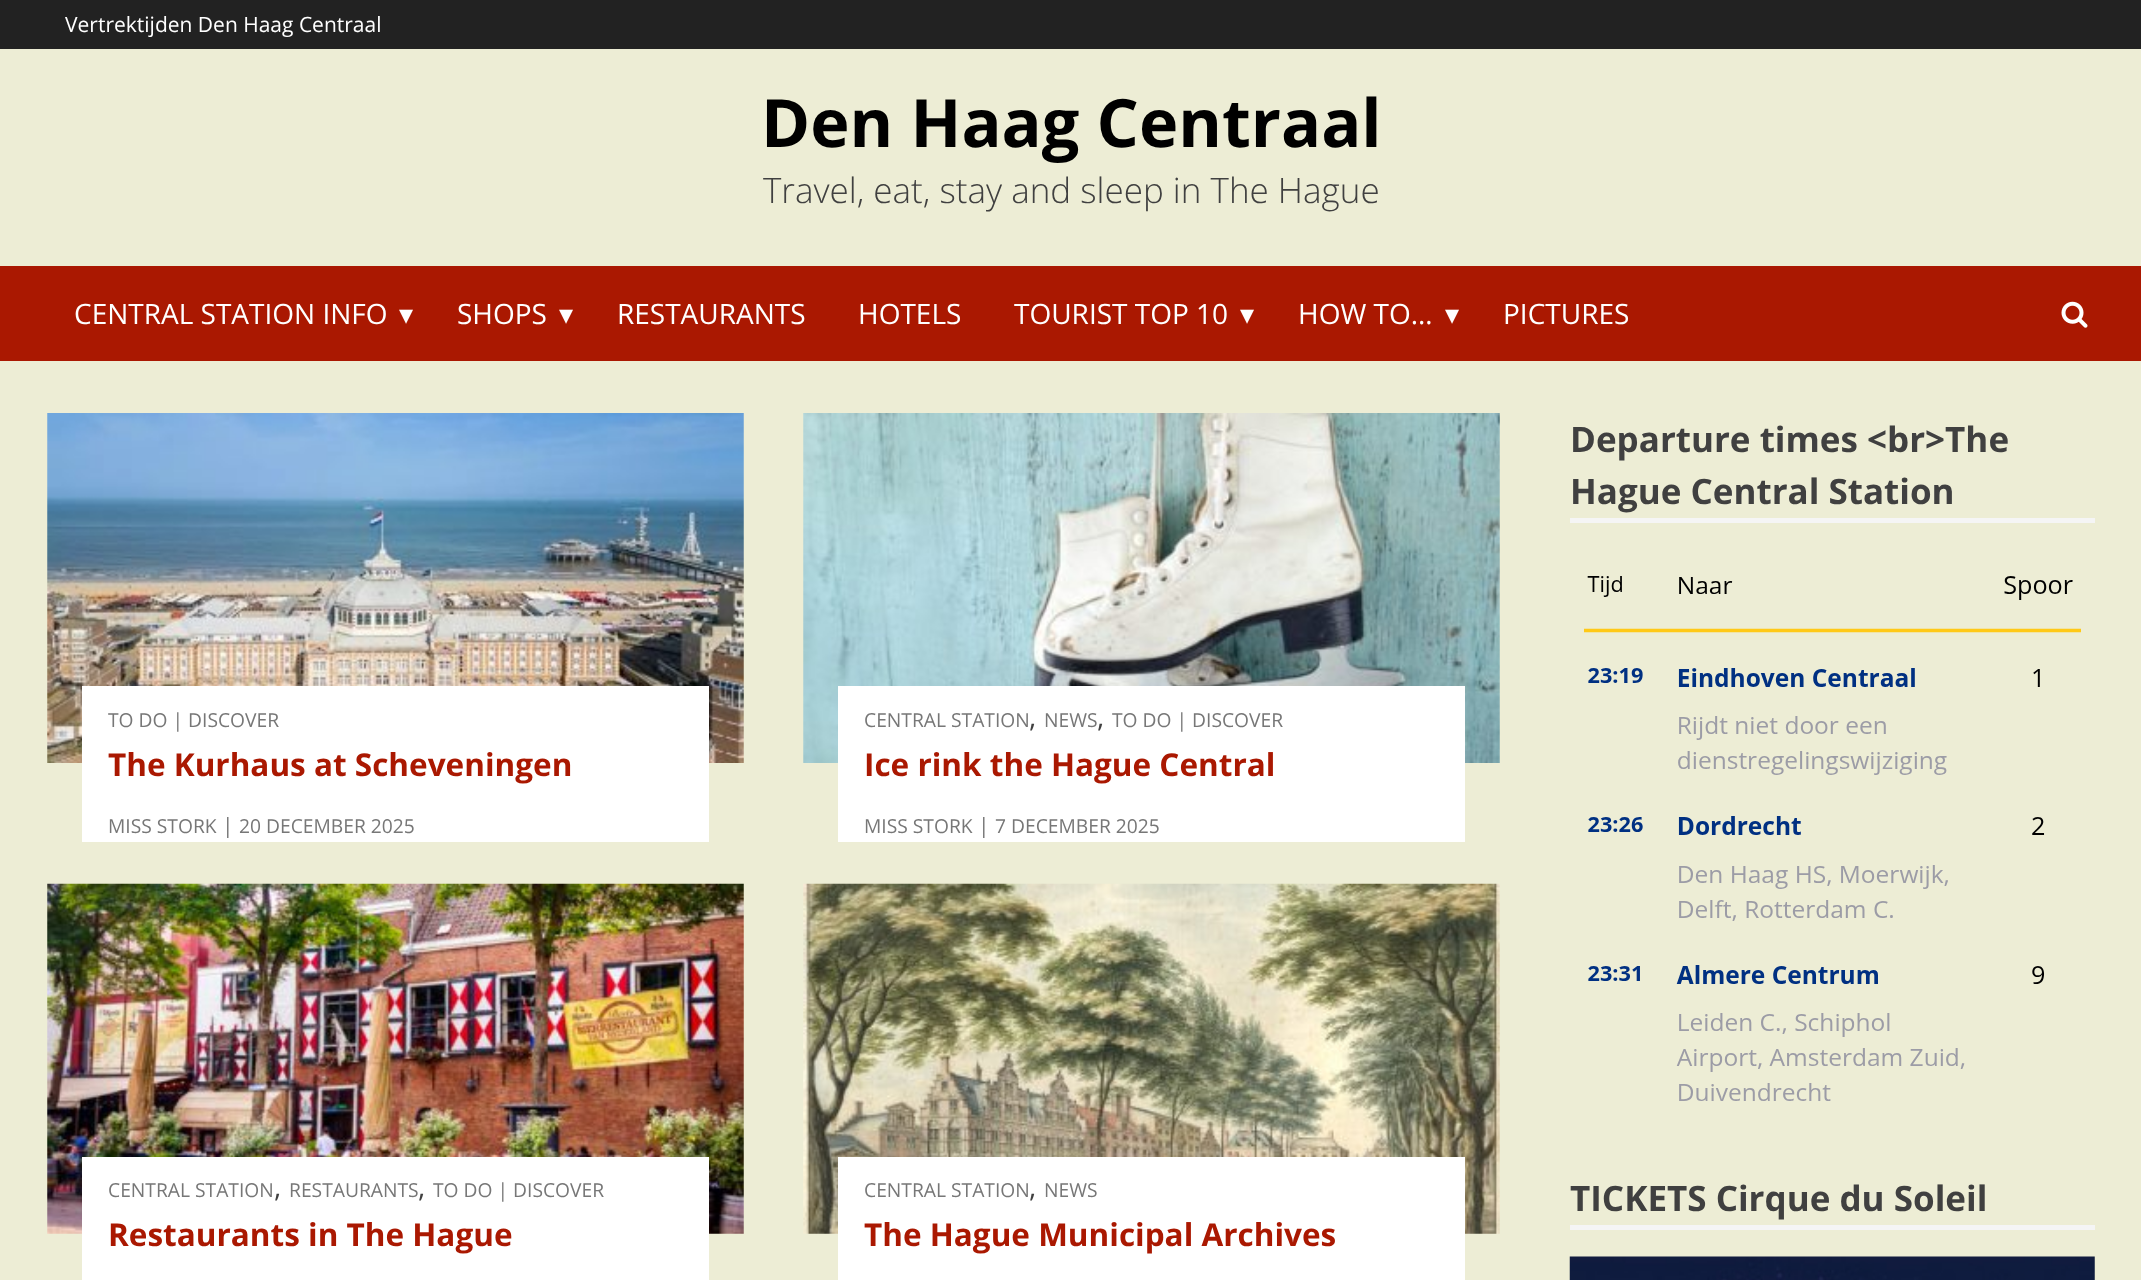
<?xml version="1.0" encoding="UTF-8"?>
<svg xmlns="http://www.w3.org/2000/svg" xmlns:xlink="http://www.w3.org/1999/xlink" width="2141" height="1280">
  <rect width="100%" height="100%" fill="#ededd5" />
  <rect width="2141" height="49" fill="#222222" />
  <rect y="266" width="2141" height="95" fill="#aa1801" />
  <image x="2061" y="301" width="27" height="27" xlink:href="image1.png" />
  <image x="47" y="413" width="697" height="350" xlink:href="image2.png" />
  <rect x="82" y="686" width="627" height="156" fill="#ffffff" />
  <image x="803" y="413" width="697" height="350" xlink:href="image3.png" />
  <rect x="838" y="686" width="627" height="156" fill="#ffffff" />
  <image x="47" y="883" width="697" height="351" xlink:href="image4.png" />
  <rect x="82" y="1157" width="627" height="123" fill="#ffffff" />
  <image x="803" y="883" width="697" height="351" xlink:href="image5.png" />
  <rect x="838" y="1157" width="627" height="123" fill="#ffffff" />
  <rect x="1570" y="518" width="525" height="5" fill="#f5f5f5" />
  <image x="1584" y="576" width="497" height="525" xlink:href="image6.png" />
  <rect x="1570" y="1225" width="525" height="5" fill="#f5f5f5" />
  <image x="1569" y="1256" width="526" height="24" xlink:href="image7.png" />
  <text x="65" y="32" style="font-family: Open Sans; font-size: 21px; fill: #ffffff">Vertrektijden Den Haag Centraal</text>
  <text x="761" y="147" style="font-family: Open Sans; font-size: 66.5px; font-weight: bold; fill: #000000">Den Haag Centraal</text>
  <text x="763" y="203" style="font-family: Open Sans; font-size: 35px; font-weight: 300; fill: #404040">Travel, eat, stay and sleep in The Hague</text>
  <text x="74" y="324" style="font-family: Open Sans; font-size: 28px; fill: #ffffff">CENTRAL STATION INFO</text>
  <text x="399" y="324" style="font-family: DejaVu Sans; font-size: 28px; fill: #ffffff">▾</text>
  <text x="457" y="324" style="font-family: Open Sans; font-size: 28px; fill: #ffffff">SHOPS</text>
  <text x="559" y="324" style="font-family: DejaVu Sans; font-size: 28px; fill: #ffffff">▾</text>
  <text x="617" y="324" style="font-family: Open Sans; font-size: 28px; fill: #ffffff">RESTAURANTS</text>
  <text x="858" y="324" style="font-family: Open Sans; font-size: 28px; fill: #ffffff">HOTELS</text>
  <text x="1014" y="324" style="font-family: Open Sans; font-size: 28px; fill: #ffffff">TOURIST TOP 10</text>
  <text x="1240" y="324" style="font-family: DejaVu Sans; font-size: 28px; fill: #ffffff">▾</text>
  <text x="1298" y="324" style="font-family: Open Sans; font-size: 28px; fill: #ffffff">HOW TO…</text>
  <text x="1445" y="324" style="font-family: DejaVu Sans; font-size: 28px; fill: #ffffff">▾</text>
  <text x="1503" y="324" style="font-family: Open Sans; font-size: 28px; fill: #ffffff">PICTURES</text>
  <text x="108" y="727" style="font-family: Open Sans; font-size: 19.25px; fill: #777777">TO DO | DISCOVER</text>
  <text x="108" y="776" style="font-family: Open Sans; font-size: 31.5px; font-weight: bold; fill: #aa1801">The Kurhaus at Scheveningen</text>
  <text x="108" y="833" style="font-family: Open Sans; font-size: 19.25px; fill: #777777">MISS STORK</text>
  <text x="222" y="833" style="font-family: Open Sans; font-size: 21px; fill: #777777">|</text>
  <text x="239" y="833" style="font-family: Open Sans; font-size: 19.25px; fill: #777777">20 DECEMBER 2025</text>
  <text x="864" y="727" style="font-family: Open Sans; font-size: 19.25px; fill: #777777">CENTRAL STATION</text>
  <text x="1029" y="727" style="font-family: Open Sans; font-size: 28px; fill: #404040">,</text>
  <text x="1044" y="727" style="font-family: Open Sans; font-size: 19.25px; fill: #777777">NEWS</text>
  <text x="1097" y="727" style="font-family: Open Sans; font-size: 28px; fill: #404040">,</text>
  <text x="1112" y="727" style="font-family: Open Sans; font-size: 19.25px; fill: #777777">TO DO | DISCOVER</text>
  <text x="864" y="776" style="font-family: Open Sans; font-size: 31.5px; font-weight: bold; fill: #aa1801">Ice rink the Hague Central</text>
  <text x="864" y="833" style="font-family: Open Sans; font-size: 19.25px; fill: #777777">MISS STORK</text>
  <text x="978" y="833" style="font-family: Open Sans; font-size: 21px; fill: #777777">|</text>
  <text x="995" y="833" style="font-family: Open Sans; font-size: 19.25px; fill: #777777">7 DECEMBER 2025</text>
  <text x="108" y="1197" style="font-family: Open Sans; font-size: 19.25px; fill: #777777">CENTRAL STATION</text>
  <text x="274" y="1197" style="font-family: Open Sans; font-size: 28px; fill: #404040">,</text>
  <text x="289" y="1197" style="font-family: Open Sans; font-size: 19.25px; fill: #777777">RESTAURANTS</text>
  <text x="418" y="1197" style="font-family: Open Sans; font-size: 28px; fill: #404040">,</text>
  <text x="433" y="1197" style="font-family: Open Sans; font-size: 19.25px; fill: #777777">TO DO | DISCOVER</text>
  <text x="108" y="1246" style="font-family: Open Sans; font-size: 31.5px; font-weight: bold; fill: #aa1801">Restaurants in The Hague</text>
  <text x="864" y="1197" style="font-family: Open Sans; font-size: 19.25px; fill: #777777">CENTRAL STATION</text>
  <text x="1029" y="1197" style="font-family: Open Sans; font-size: 28px; fill: #404040">,</text>
  <text x="1044" y="1197" style="font-family: Open Sans; font-size: 19.25px; fill: #777777">NEWS</text>
  <text x="864" y="1246" style="font-family: Open Sans; font-size: 31.5px; font-weight: bold; fill: #aa1801">The Hague Municipal Archives</text>
  <text x="1570" y="452" style="font-family: Open Sans; font-size: 35px; font-weight: bold; fill: #404040">Departure times &lt;br&gt;The</text>
  <text x="1570" y="504" style="font-family: Open Sans; font-size: 35px; font-weight: bold; fill: #404040">Hague Central Station</text>
  <text x="1570" y="1211" style="font-family: Open Sans; font-size: 35px; font-weight: bold; fill: #404040">TICKETS Cirque du Soleil</text>
</svg>
